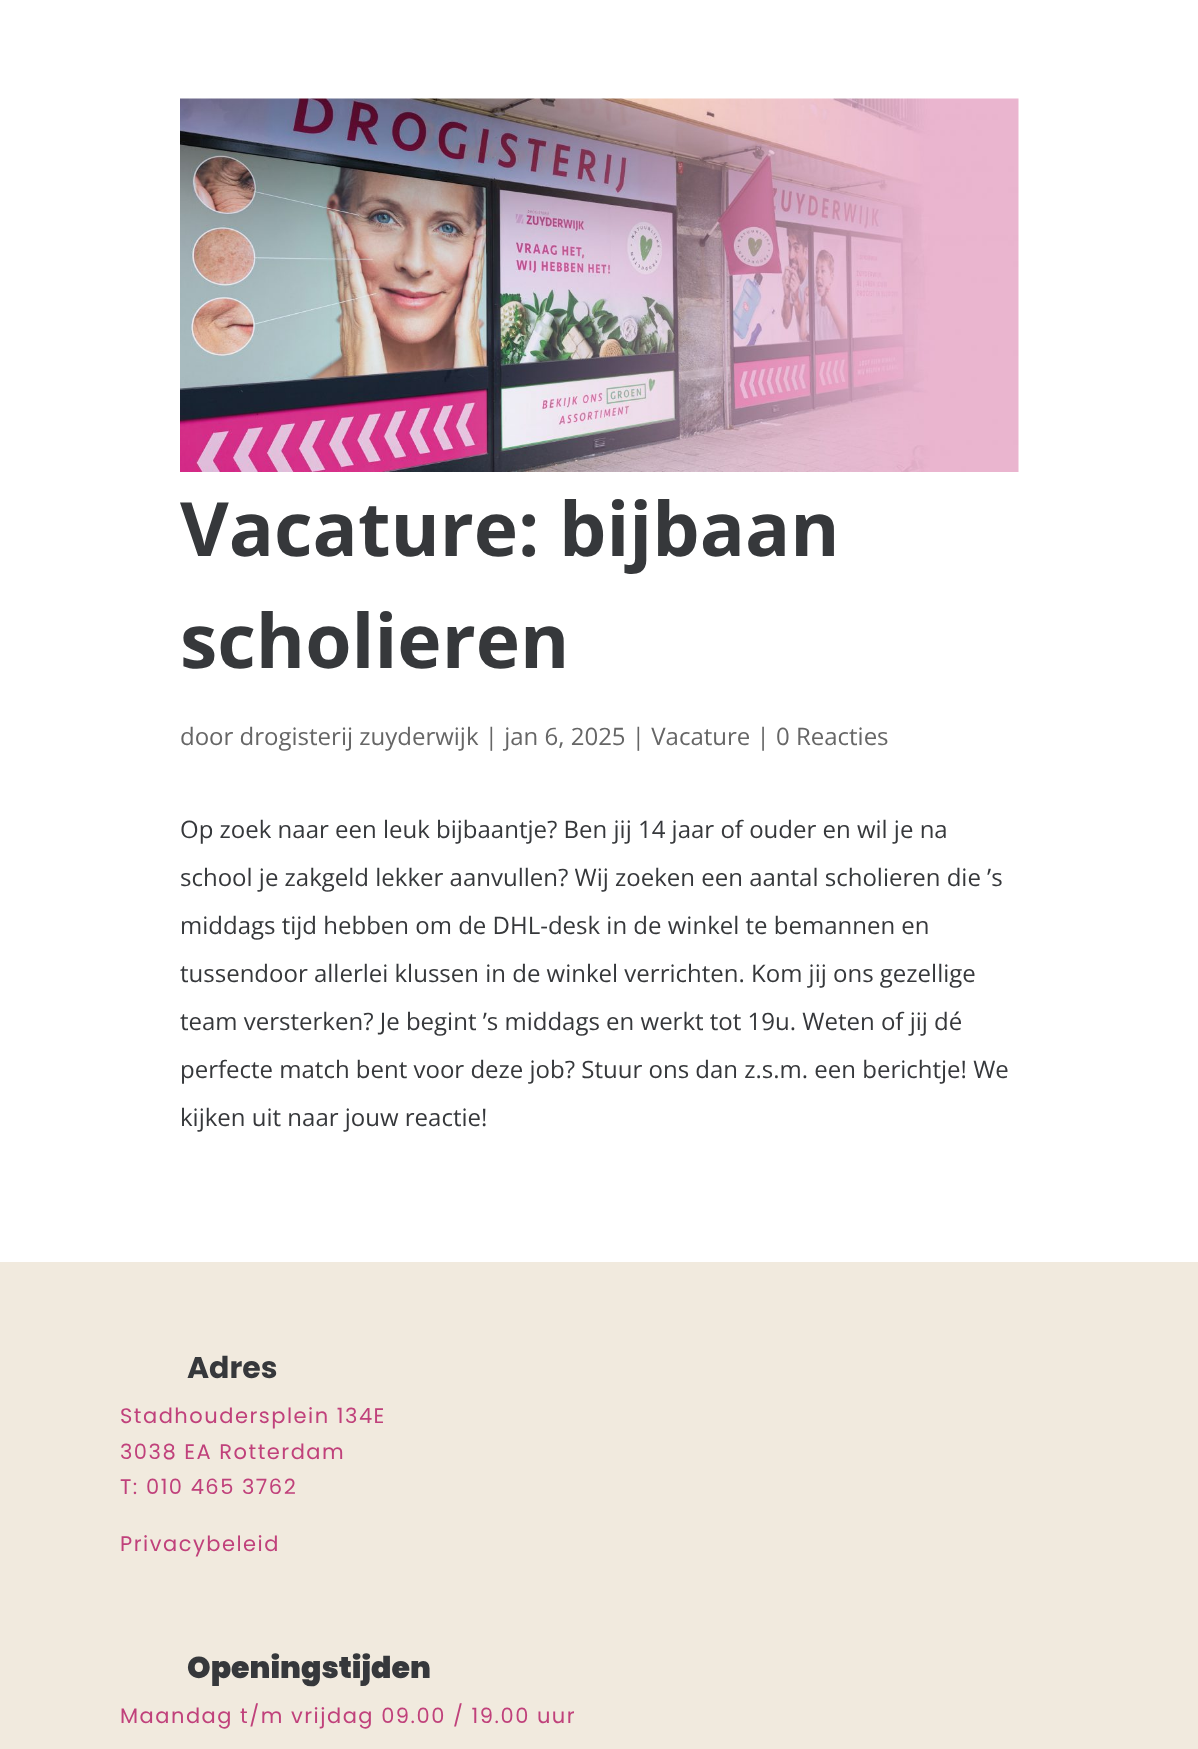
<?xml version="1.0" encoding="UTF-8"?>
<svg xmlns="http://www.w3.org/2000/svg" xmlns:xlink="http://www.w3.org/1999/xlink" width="1198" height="1749">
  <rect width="100%" height="100%" fill="#ffffff" />
  <image x="180" y="98" width="839" height="374" xlink:href="image1.png" />
  <rect y="1262" width="1198" height="487" fill="#f1eade" />
  <text x="180" y="556" style="font-family: Open Sans; font-size: 75px; font-weight: bold; fill: #36383b">Vacature: bijbaan</text>
  <text x="180" y="668" style="font-family: Open Sans; font-size: 75px; font-weight: bold; fill: #36383b">scholieren</text>
  <text x="180" y="745" style="font-family: Open Sans; font-size: 24px; fill: #666666">door drogisterij zuyderwijk | jan 6, 2025 | Vacature | 0 Reacties</text>
  <text x="180" y="838" style="font-family: Open Sans; font-size: 24px; fill: #36383b">Op zoek naar een leuk bijbaantje? Ben jij 14 jaar of ouder en wil je na</text>
  <text x="180" y="886" style="font-family: Open Sans; font-size: 24px; fill: #36383b">school je zakgeld lekker aanvullen? Wij zoeken een aantal scholieren die ’s</text>
  <text x="180" y="934" style="font-family: Open Sans; font-size: 24px; fill: #36383b">middags tijd hebben om de DHL-desk in de winkel te bemannen en</text>
  <text x="180" y="982" style="font-family: Open Sans; font-size: 24px; fill: #36383b">tussendoor allerlei klussen in de winkel verrichten. Kom jij ons gezellige</text>
  <text x="180" y="1030" style="font-family: Open Sans; font-size: 24px; fill: #36383b">team versterken? Je begint ’s middags en werkt tot 19u. Weten of jij dé</text>
  <text x="180" y="1078" style="font-family: Open Sans; font-size: 24px; fill: #36383b">perfecte match bent voor deze job? Stuur ons dan z.s.m. een berichtje! We</text>
  <text x="180" y="1126" style="font-family: Open Sans; font-size: 24px; fill: #36383b">kijken uit naar jouw reactie!</text>
  <text x="187" y="1378" style="font-family: Poppins; font-size: 30px; font-weight: bold; fill: #36383b">Adres</text>
  <text x="120" y="1423" style="font-family: Poppins; font-size: 21px; letter-spacing: 1.5px; fill: #c0417b">Stadhoudersplein 134E</text>
  <text x="120" y="1459" style="font-family: Poppins; font-size: 21px; letter-spacing: 1.5px; fill: #c0417b">3038 EA Rotterdam</text>
  <text x="120" y="1494" style="font-family: Poppins; font-size: 21px; letter-spacing: 1.5px; fill: #c0417b">T: 010 465 3762</text>
  <text x="120" y="1551" style="font-family: Poppins; font-size: 21px; letter-spacing: 1.5px; fill: #c0417b">Privacybeleid</text>
  <text x="187" y="1678" style="font-family: Poppins; font-size: 30px; font-weight: 900; fill: #36383b">Openingstijden</text>
  <text x="120" y="1723" style="font-family: Poppins; font-size: 21px; letter-spacing: 1.5px; fill: #c0417b">Maandag t/m vrijdag 09.00 / 19.00 uur</text>
</svg>
